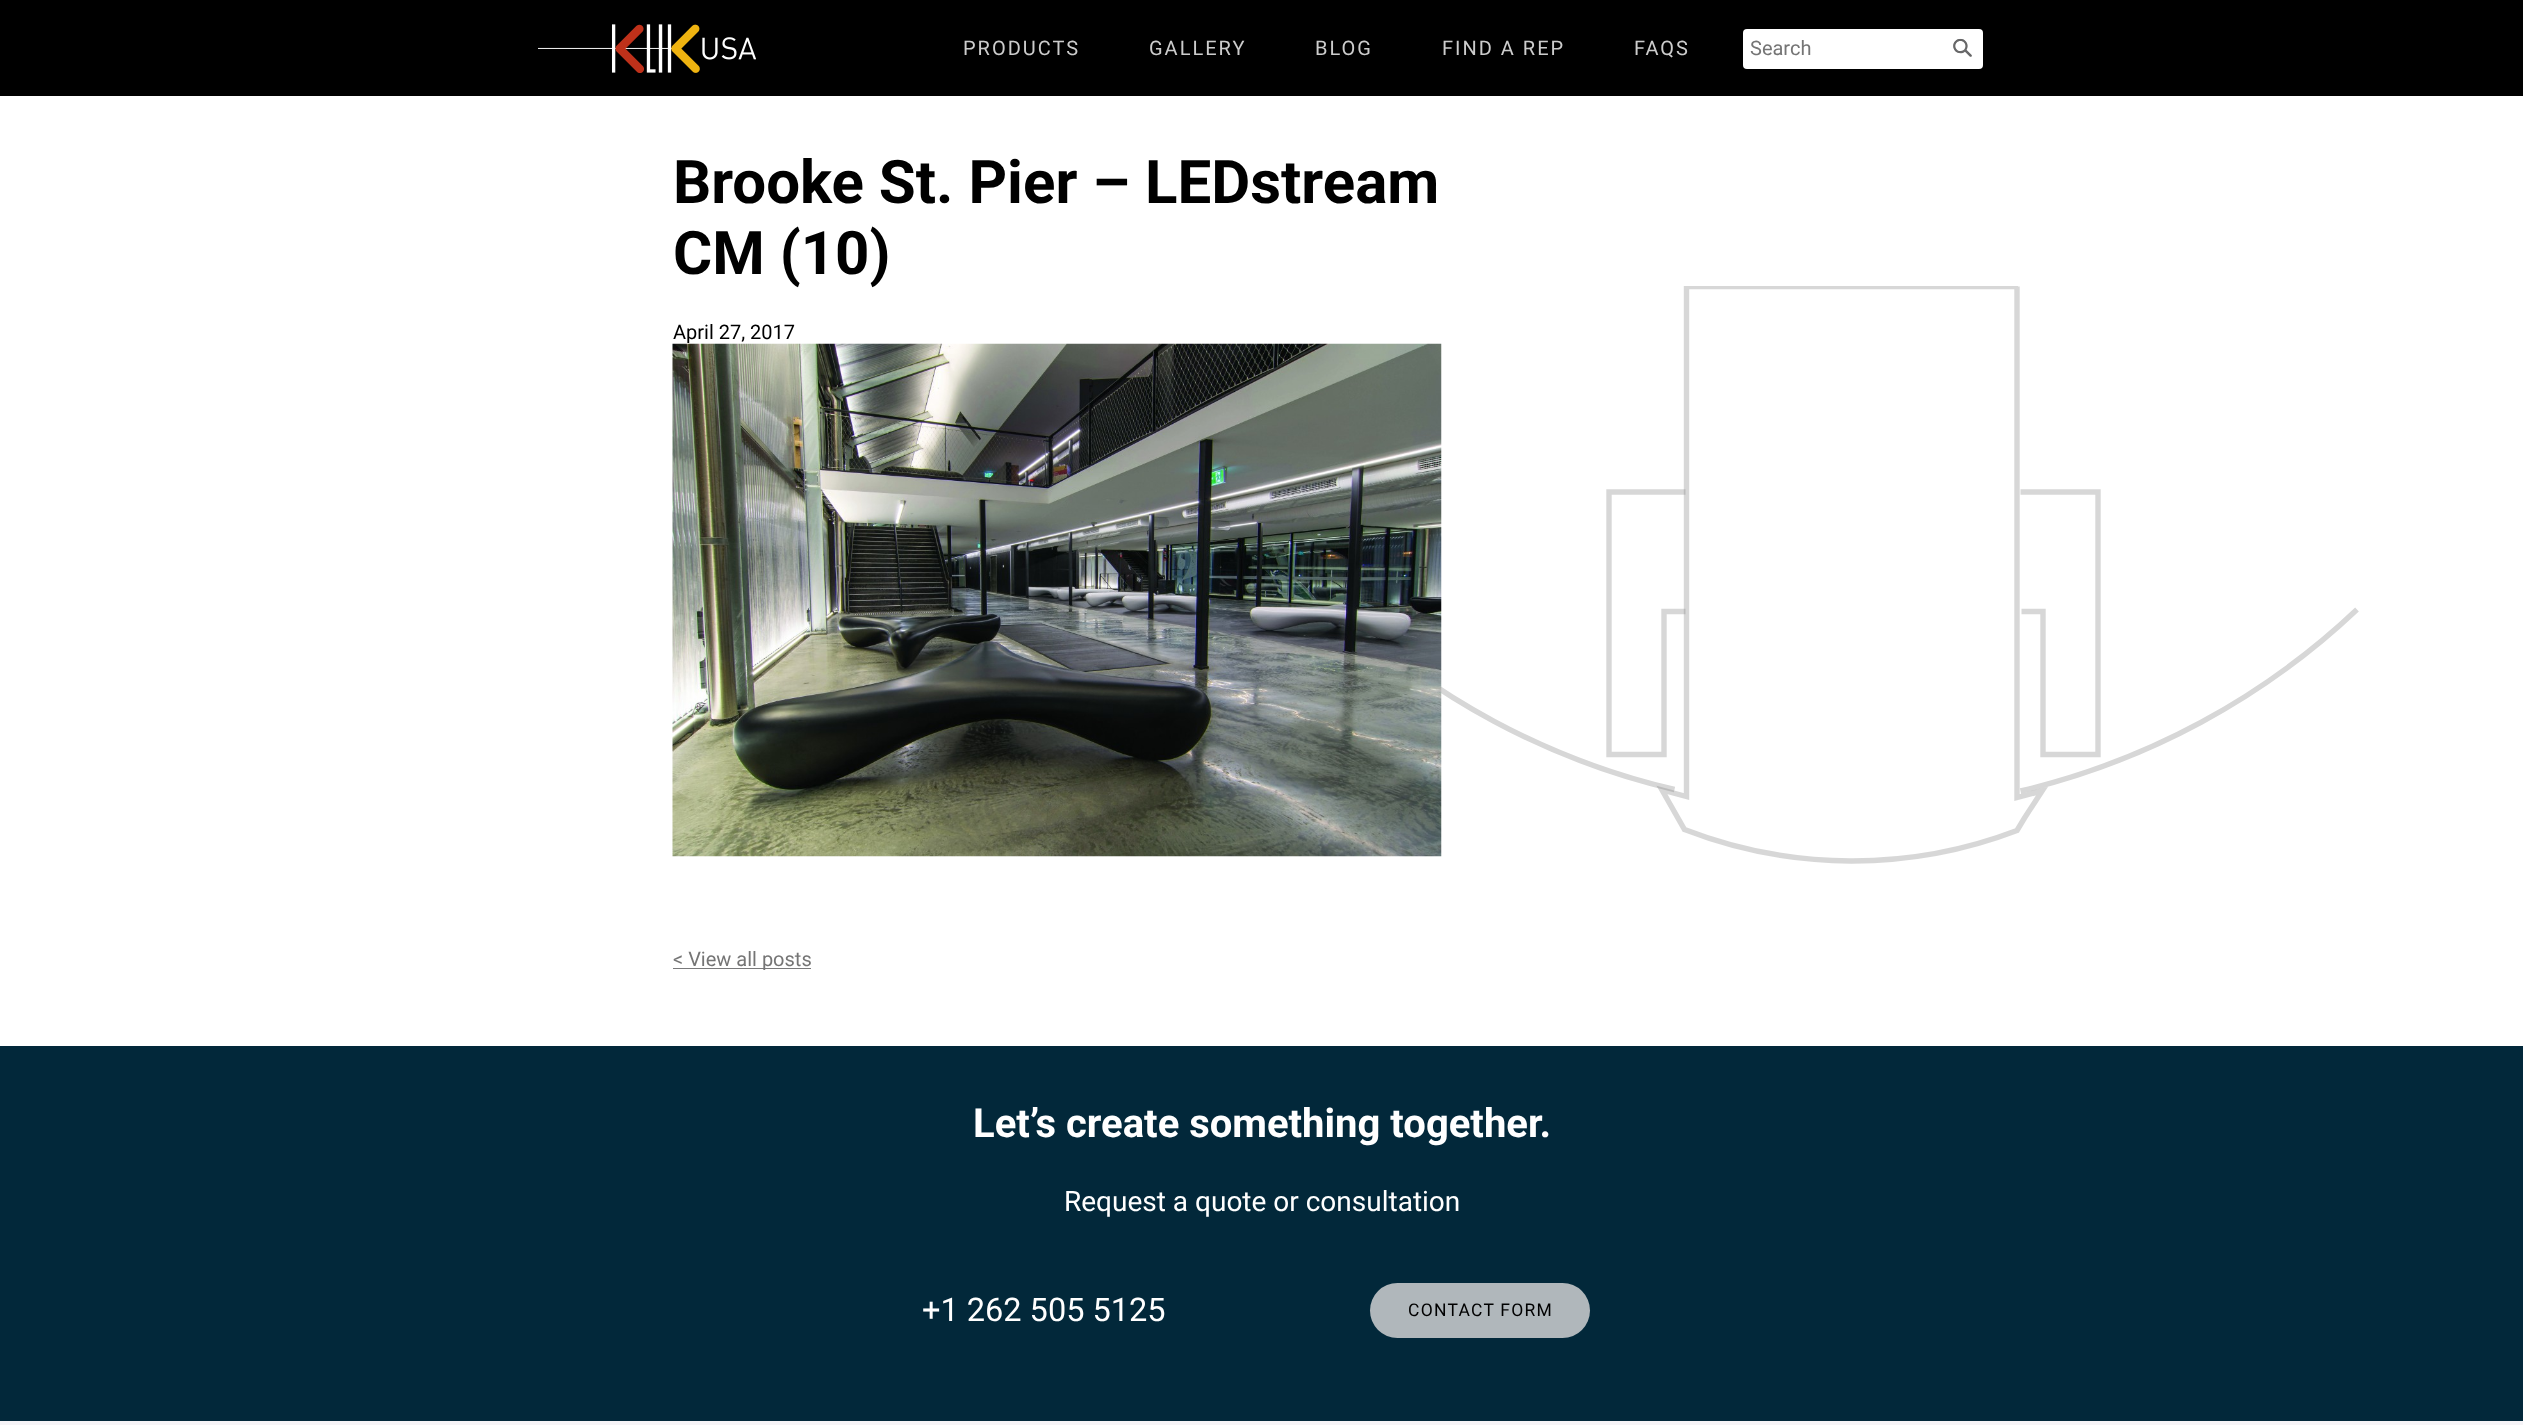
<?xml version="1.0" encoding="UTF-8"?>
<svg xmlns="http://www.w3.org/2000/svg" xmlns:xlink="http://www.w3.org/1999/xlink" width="2523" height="1425">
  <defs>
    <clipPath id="clip1"><rect x="1339" y="286" width="1024" height="580" /></clipPath>
  </defs>
  <rect width="100%" height="100%" fill="#ffffff" />
  <rect width="2523" height="96" fill="#000000" />
  <image x="538" y="24" width="218" height="49" xlink:href="image1.png" />
  <rect x="1743" y="29" width="240" height="40" rx="4" fill="#ffffff" />
  <image x="1953" y="38" width="19" height="19" xlink:href="image2.png" />
  <path d="M 1685.5 492 h -76.5 v 262.5 h 55 v -143 h 21.5 m 335 -119.5 h 77.5 v 262.5 h -55 v -143 h -21.5 m -1 179.5 c 126.5 -30 242.5 -92.5 336.5 -181.5 m -1018 0 c 93.5 88.5 209.5 150.5 335.5 180" fill="none" stroke="#d7d7d7" stroke-width="5.4" />
  <g clip-path="url(#clip1)">
    <path d="M 2018 286.5 h -331.5 v 510 l -24.5 -6.5 l 22.5 39.5 c 107 41.5 225.5 42 332.5 1 l 7.5 -12.5 l 17.5 -27 l -25 6.5 v -511 z" fill="none" stroke="#797979" stroke-opacity="0.3" stroke-width="5.4" />
  </g>
  <rect x="673" y="968" width="138" height="1" fill="#79797a" />
  <rect y="1046" width="2523" height="375" fill="#02283a" />
  <rect x="1370" y="1283" width="220" height="55" rx="27.5" fill="#b0b7bb" />
  <rect y="1421" width="2523" height="4" fill="#f6f4f7" />
  <text x="963" y="55" style="font-family: Roboto; font-size: 20px; letter-spacing: 2px; fill: #cccccc">PRODUCTS</text>
  <text x="1149" y="55" style="font-family: Roboto; font-size: 20px; letter-spacing: 2px; fill: #cccccc">GALLERY</text>
  <text x="1315" y="55" style="font-family: Roboto; font-size: 20px; letter-spacing: 2px; fill: #cccccc">BLOG</text>
  <text x="1442" y="55" style="font-family: Roboto; font-size: 20px; letter-spacing: 2px; fill: #cccccc">FIND A REP</text>
  <text x="1634" y="55" style="font-family: Roboto; font-size: 20px; letter-spacing: 2px; fill: #cccccc">FAQS</text>
  <text x="1750" y="55" style="font-family: Roboto; font-size: 20px; fill: #757575">Search</text>
  <text x="673" y="203" style="font-family: Roboto; font-size: 60px; font-weight: bold; fill: #000000">Brooke St. Pier – LEDstream</text>
  <text x="673" y="274" style="font-family: Roboto; font-size: 60px; font-weight: bold; fill: #000000">CM (10)</text>
  <text x="673" y="339" style="font-family: Roboto; font-size: 20px; fill: #000000">April 27, 2017</text>
  <image x="672" y="343" width="770" height="514" xlink:href="image3.png" />
  <text x="673" y="966" style="font-family: Roboto; font-size: 20px; fill: #757575">&lt; View all posts</text>
  <text x="973" y="1137" style="font-family: Roboto; font-size: 40px; font-weight: bold; fill: #ffffff">Let’s create something together.</text>
  <text x="1064" y="1211" style="font-family: Roboto; font-size: 28px; fill: #ffffff">Request a quote or consultation</text>
  <text x="922" y="1321" style="font-family: Roboto; font-size: 32.5px; fill: #ffffff">+1 262 505 5125</text>
  <text x="1408" y="1316" style="font-family: Roboto; font-size: 17.5px; letter-spacing: 1.25px; fill: #000000">CONTACT FORM</text>
</svg>
